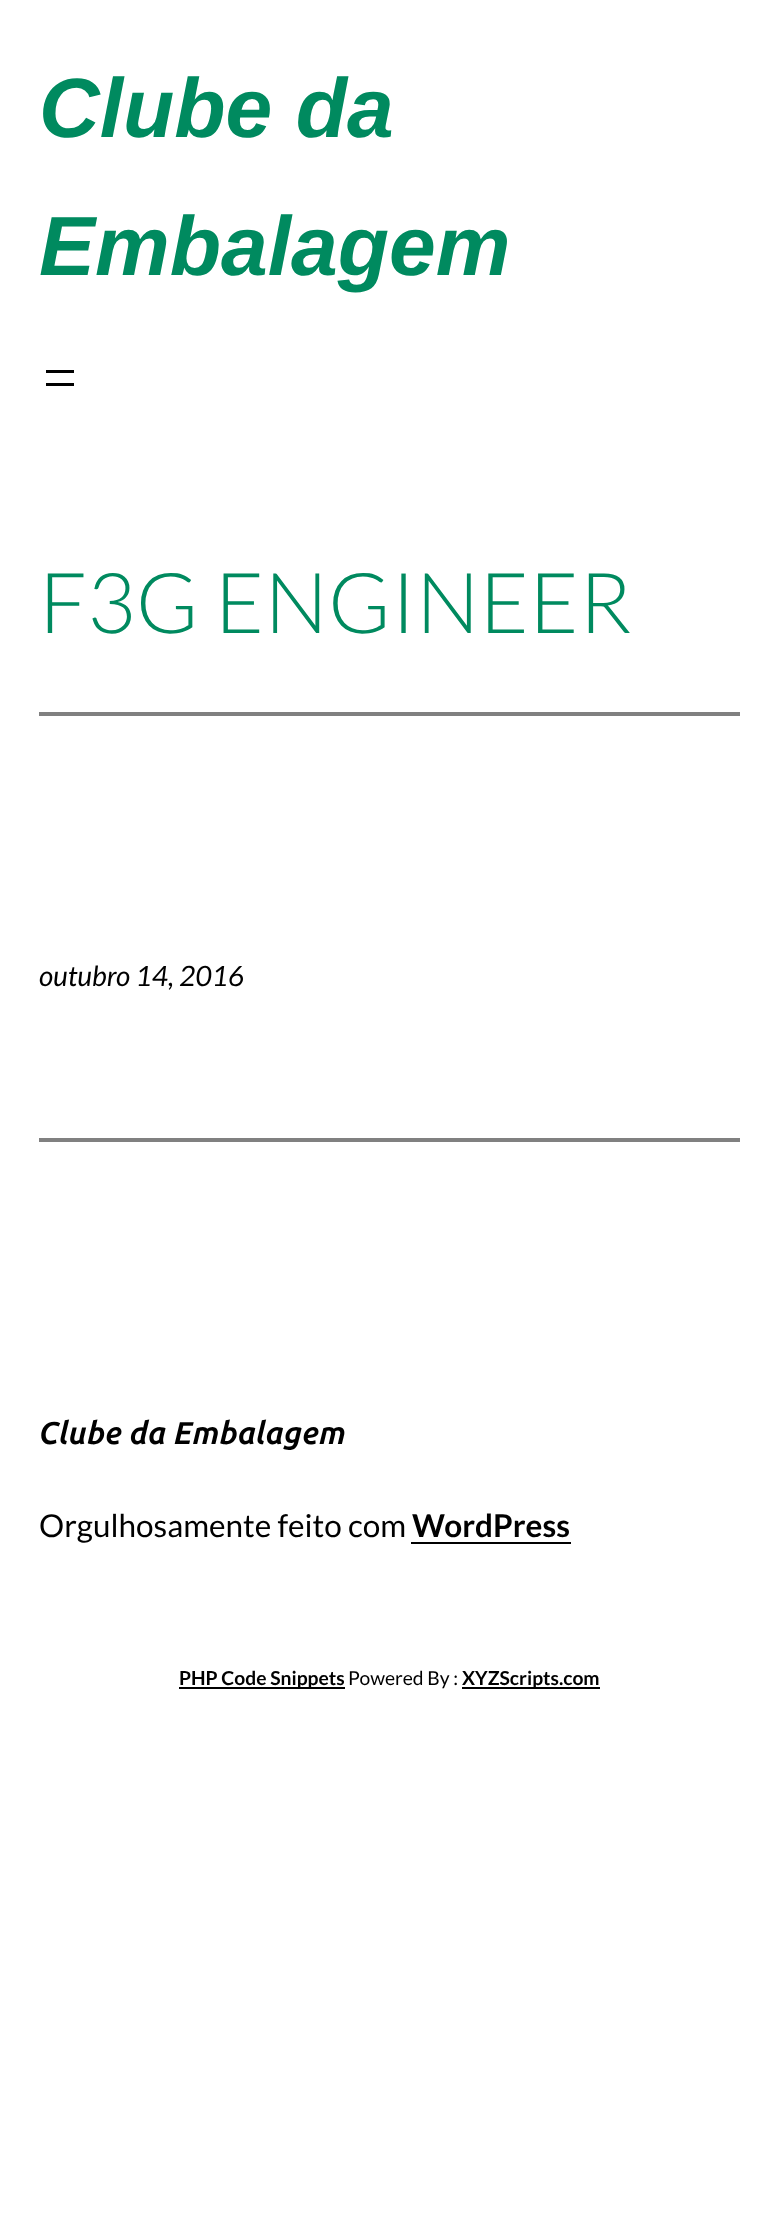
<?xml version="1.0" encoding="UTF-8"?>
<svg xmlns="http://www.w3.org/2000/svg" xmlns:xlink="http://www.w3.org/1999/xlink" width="778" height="2236">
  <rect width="100%" height="100%" fill="#ffffff" />
  <rect x="46" y="370" width="28" height="3" fill="#000000" />
  <rect x="46" y="383" width="28" height="3" fill="#000000" />
  <rect x="39" y="712" width="701" height="4" fill="#808080" />
  <rect x="39" y="1138" width="701" height="4" fill="#808080" />
  <rect x="411" y="1542" width="160" height="2" fill="#000000" />
  <rect x="179" y="1687" width="166" height="2" fill="#000000" />
  <rect x="462" y="1687" width="138" height="2" fill="#000000" />
  <text x="39" y="137" style="font-family: Liberation Sans; font-size: 84px; font-weight: bold; font-style: italic; fill: #008a5f">Clube da</text>
  <text x="39" y="275" style="font-family: Liberation Sans; font-size: 84px; font-weight: bold; font-style: italic; fill: #008a5f">Embalagem</text>
  <text x="39" y="633" style="font-family: Lato; font-size: 84px; font-weight: 300; fill: #008a5f">F3G ENGINEER</text>
  <text x="39" y="986" style="font-family: Lato; font-size: 28px; font-style: italic; fill: #000000">outubro 14, 2016</text>
  <text x="39" y="1444" style="font-family: Ubuntu; font-size: 31.5px; font-weight: bold; font-style: italic; fill: #000000">Clube da Embalagem</text>
  <text x="39" y="1537" style="font-family: Lato; font-size: 31.5px; fill: #000000">Orgulhosamente feito com</text>
  <text x="412" y="1537" style="font-family: Lato; font-size: 31.5px; font-weight: bold; fill: #000000">WordPress</text>
  <text x="179" y="1685" style="font-family: Lato; font-size: 19.25px; font-weight: bold; fill: #000000">PHP Code Snippets</text>
  <text x="348" y="1685" style="font-family: Lato; font-size: 19.25px; fill: #000000">Powered By :</text>
  <text x="462" y="1685" style="font-family: Lato; font-size: 19.25px; font-weight: bold; fill: #000000">XYZScripts.com</text>
</svg>
